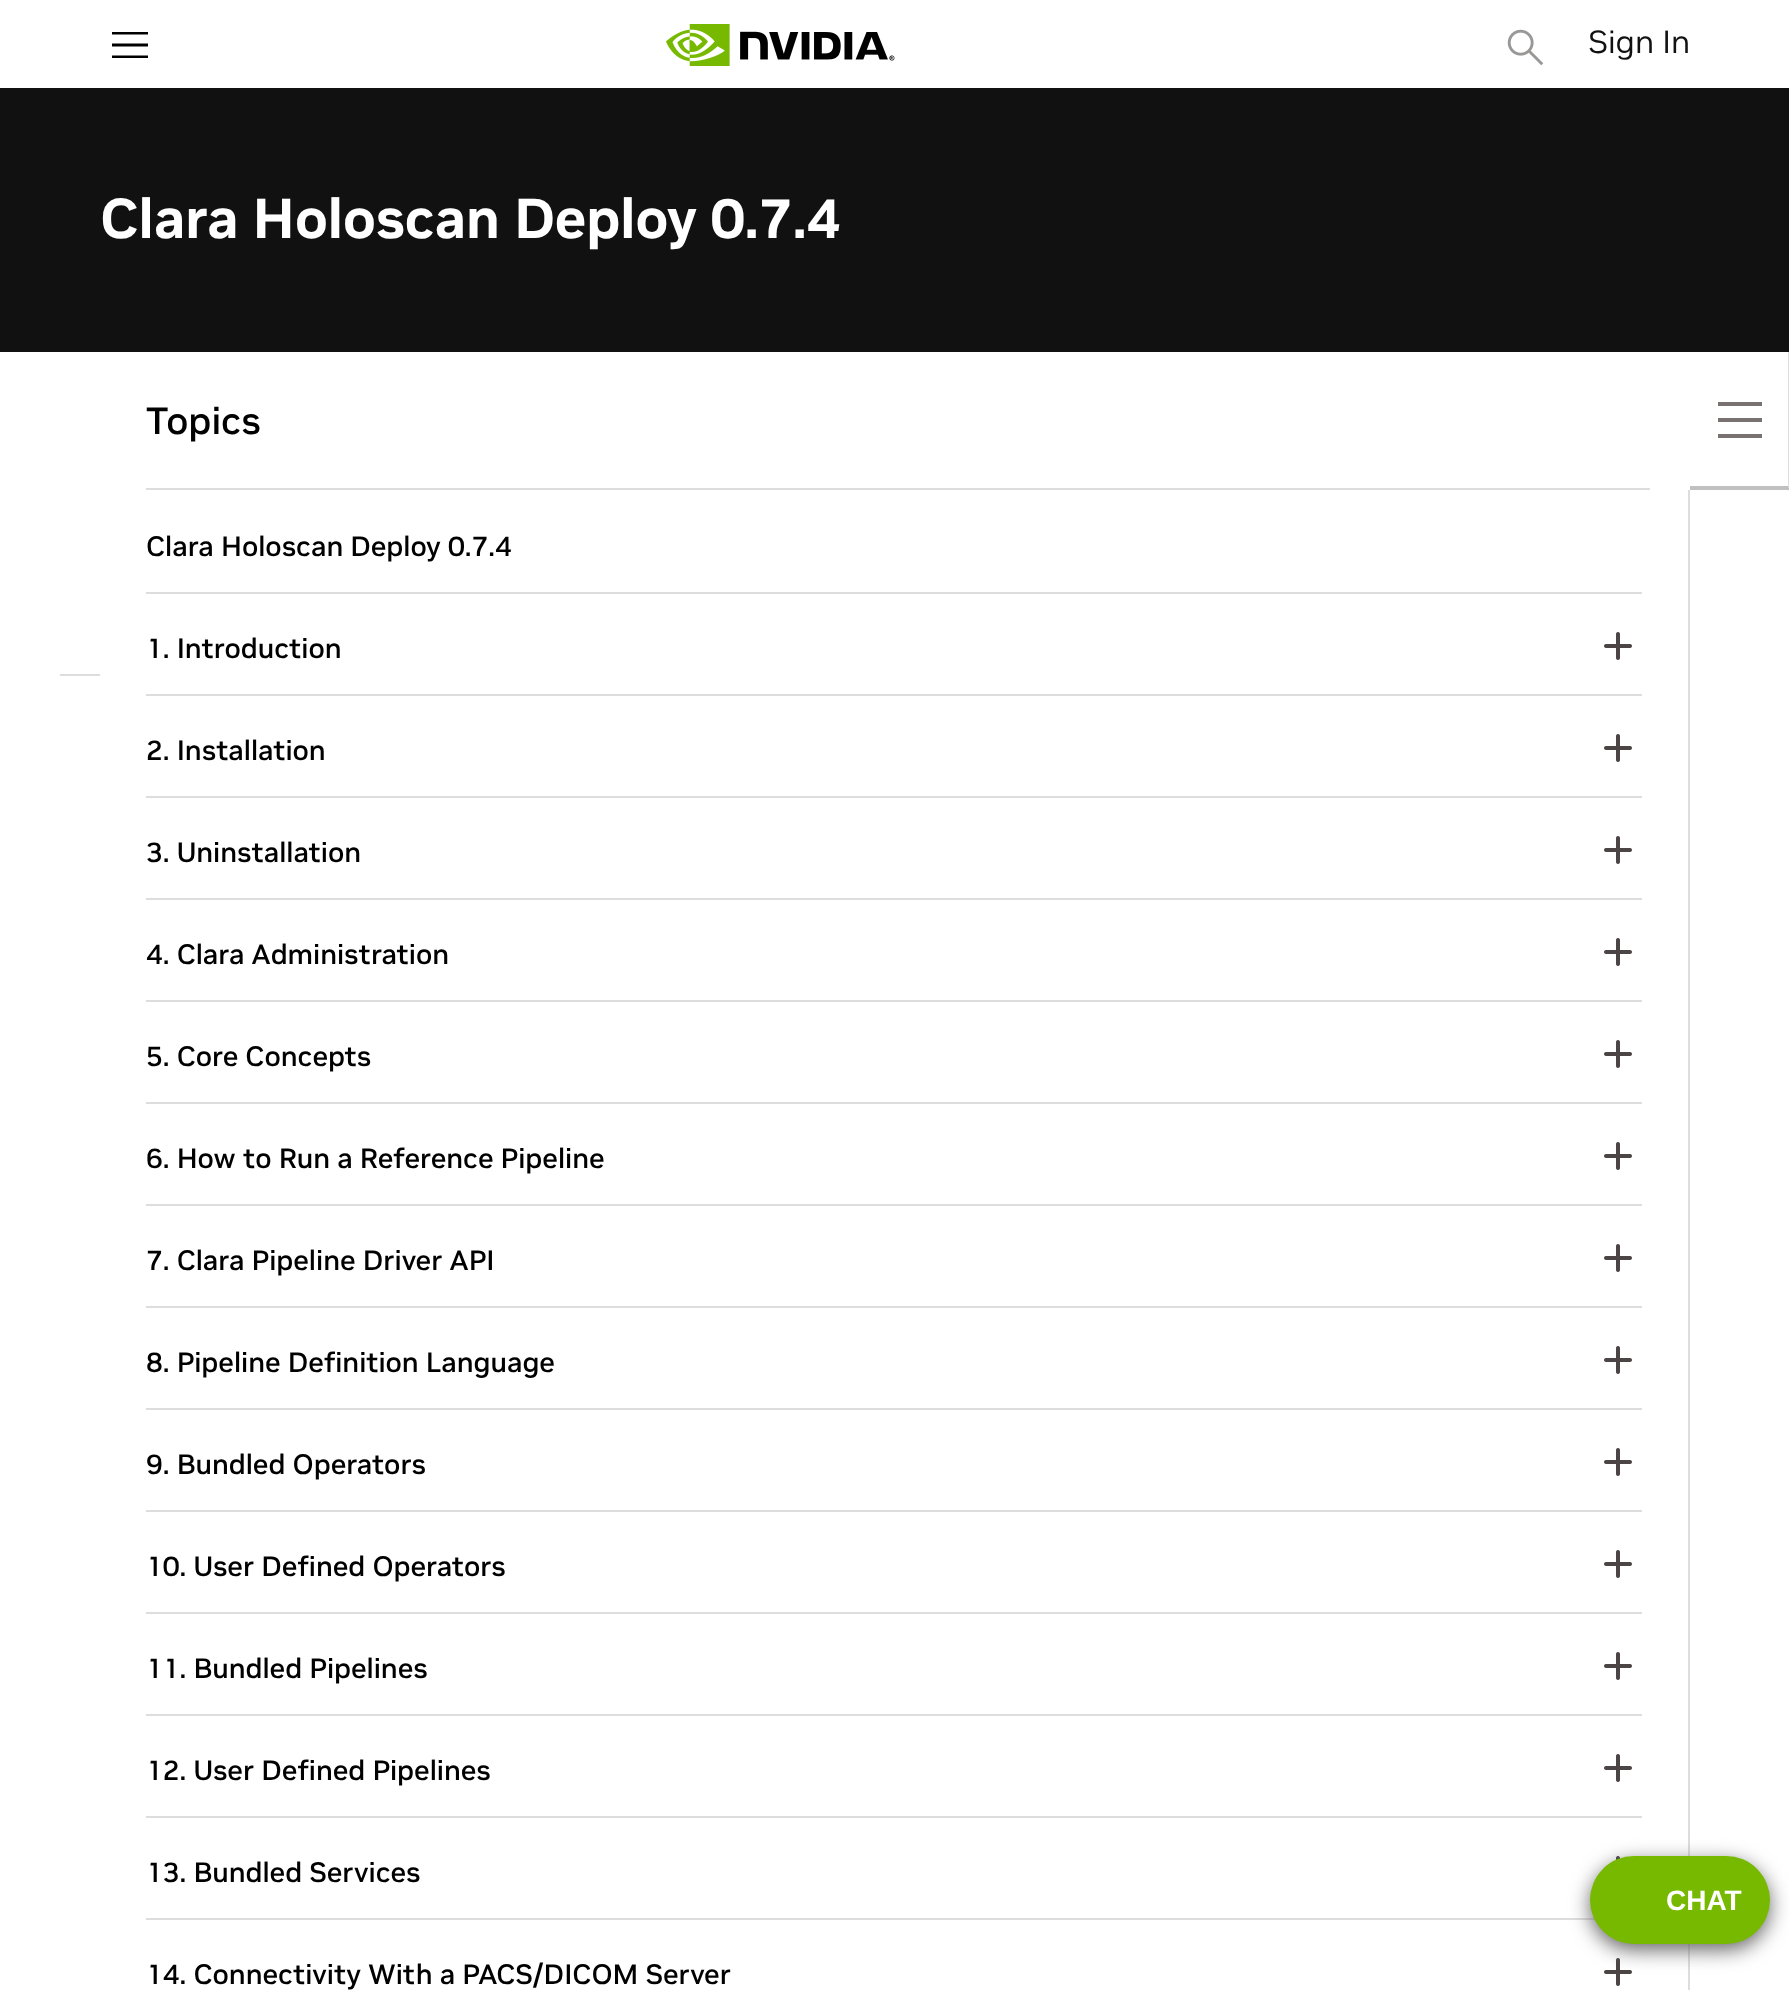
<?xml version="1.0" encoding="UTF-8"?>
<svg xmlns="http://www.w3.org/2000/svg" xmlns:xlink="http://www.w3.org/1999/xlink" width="1789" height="1990">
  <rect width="100%" height="100%" fill="#ffffff" />
  <path d="M 112 46.5 v -3 h 36 v 3 z m 0 -12 v -2.5 h 36 v 2.5 z m 0 23.5 v -2.5 h 36 v 2.5 z" fill="#000000" fill-rule="evenodd" />
  <image x="666" y="24" width="229" height="42" xlink:href="image1.png" />
  <image x="1507" y="29" width="37" height="37" xlink:href="image2.png" />
  <rect y="88" width="1789" height="264" fill="#111111" />
  <rect x="60" y="674" width="40" height="2" fill="#dddddd" />
  <rect x="146" y="488" width="1504" height="2" fill="#dddddd" />
  <path d="M 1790 352 v 138 l -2 -4 v -134 z" fill="#dddddd" />
  <path d="M 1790 490 h -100 v -4 h 98 z" fill="#c0c0c0" />
  <rect x="1718" y="402" width="44" height="4" fill="#787171" />
  <rect x="1718" y="418" width="44" height="4" fill="#787171" />
  <rect x="1718" y="434" width="44" height="4" fill="#787171" />
  <rect x="1688" y="490" width="2" height="1500" fill="#dddddd" />
  <rect x="146" y="592" width="1496" height="2" fill="#dddddd" />
  <image x="1604" y="632" width="28" height="28" xlink:href="image3.png" />
  <rect x="146" y="694" width="1496" height="2" fill="#dddddd" />
  <image x="1604" y="734" width="28" height="28" xlink:href="image3.png" />
  <rect x="146" y="796" width="1496" height="2" fill="#dddddd" />
  <image x="1604" y="836" width="28" height="28" xlink:href="image3.png" />
  <rect x="146" y="898" width="1496" height="2" fill="#dddddd" />
  <image x="1604" y="938" width="28" height="28" xlink:href="image3.png" />
  <rect x="146" y="1000" width="1496" height="2" fill="#dddddd" />
  <image x="1604" y="1040" width="28" height="28" xlink:href="image3.png" />
  <rect x="146" y="1102" width="1496" height="2" fill="#dddddd" />
  <image x="1604" y="1142" width="28" height="28" xlink:href="image3.png" />
  <rect x="146" y="1204" width="1496" height="2" fill="#dddddd" />
  <image x="1604" y="1244" width="28" height="28" xlink:href="image3.png" />
  <rect x="146" y="1306" width="1496" height="2" fill="#dddddd" />
  <image x="1604" y="1346" width="28" height="28" xlink:href="image3.png" />
  <rect x="146" y="1408" width="1496" height="2" fill="#dddddd" />
  <image x="1604" y="1448" width="28" height="28" xlink:href="image3.png" />
  <rect x="146" y="1510" width="1496" height="2" fill="#dddddd" />
  <image x="1604" y="1550" width="28" height="28" xlink:href="image3.png" />
  <rect x="146" y="1612" width="1496" height="2" fill="#dddddd" />
  <image x="1604" y="1652" width="28" height="28" xlink:href="image3.png" />
  <rect x="146" y="1714" width="1496" height="2" fill="#dddddd" />
  <image x="1604" y="1754" width="28" height="28" xlink:href="image3.png" />
  <rect x="146" y="1816" width="1496" height="2" fill="#dddddd" />
  <image x="1616" y="1856" width="4" height="4" xlink:href="image4.png" />
  <rect x="146" y="1918" width="1449" height="2" fill="#dddddd" />
  <image x="1604" y="1958" width="28" height="28" xlink:href="image3.png" />
  <rect x="1590" y="1862" width="180" height="88" rx="44" fill="#666666" filter="blur(10px)" />
  <rect x="1590" y="1856" width="180" height="88" rx="44" fill="#76b900" />
  <text x="1588" y="53" style="font-family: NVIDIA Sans; font-size: 32px; fill: #111111">Sign In</text>
  <text x="100" y="238" style="font-family: NVIDIA Sans; font-size: 56px; font-weight: bold; fill: #ffffff">Clara Holoscan Deploy 0.7.4</text>
  <text x="146" y="434" style="font-family: NVIDIA Sans; font-size: 38px; font-weight: 500; fill: #000000">Topics</text>
  <text x="146" y="556" style="font-family: NVIDIA Sans; font-size: 28px; font-weight: 500; fill: #000000">Clara Holoscan Deploy 0.7.4</text>
  <text x="146" y="658" style="font-family: NVIDIA Sans; font-size: 28px; font-weight: 500; fill: #000000">1. Introduction</text>
  <text x="146" y="760" style="font-family: NVIDIA Sans; font-size: 28px; font-weight: 500; fill: #000000">2. Installation</text>
  <text x="146" y="862" style="font-family: NVIDIA Sans; font-size: 28px; font-weight: 500; fill: #000000">3. Uninstallation</text>
  <text x="146" y="964" style="font-family: NVIDIA Sans; font-size: 28px; font-weight: 500; fill: #000000">4. Clara Administration</text>
  <text x="146" y="1066" style="font-family: NVIDIA Sans; font-size: 28px; font-weight: 500; fill: #000000">5. Core Concepts</text>
  <text x="146" y="1168" style="font-family: NVIDIA Sans; font-size: 28px; font-weight: 500; fill: #000000">6. How to Run a Reference Pipeline</text>
  <text x="146" y="1270" style="font-family: NVIDIA Sans; font-size: 28px; font-weight: 500; fill: #000000">7. Clara Pipeline Driver API</text>
  <text x="146" y="1372" style="font-family: NVIDIA Sans; font-size: 28px; font-weight: 500; fill: #000000">8. Pipeline Definition Language</text>
  <text x="146" y="1474" style="font-family: NVIDIA Sans; font-size: 28px; font-weight: 500; fill: #000000">9. Bundled Operators</text>
  <text x="146" y="1576" style="font-family: NVIDIA Sans; font-size: 28px; font-weight: 500; fill: #000000">10. User Defined Operators</text>
  <text x="146" y="1678" style="font-family: NVIDIA Sans; font-size: 28px; font-weight: 500; fill: #000000">11. Bundled Pipelines</text>
  <text x="146" y="1780" style="font-family: NVIDIA Sans; font-size: 28px; font-weight: 500; fill: #000000">12. User Defined Pipelines</text>
  <text x="146" y="1882" style="font-family: NVIDIA Sans; font-size: 28px; font-weight: 500; fill: #000000">13. Bundled Services</text>
  <text x="146" y="1984" style="font-family: NVIDIA Sans; font-size: 28px; font-weight: 500; fill: #000000">14. Connectivity With a PACS/DICOM Server</text>
  <text x="1666" y="1910" style="font-family: Liberation Sans; font-size: 28px; font-weight: bold; fill: #ffffff">CHAT</text>
</svg>
